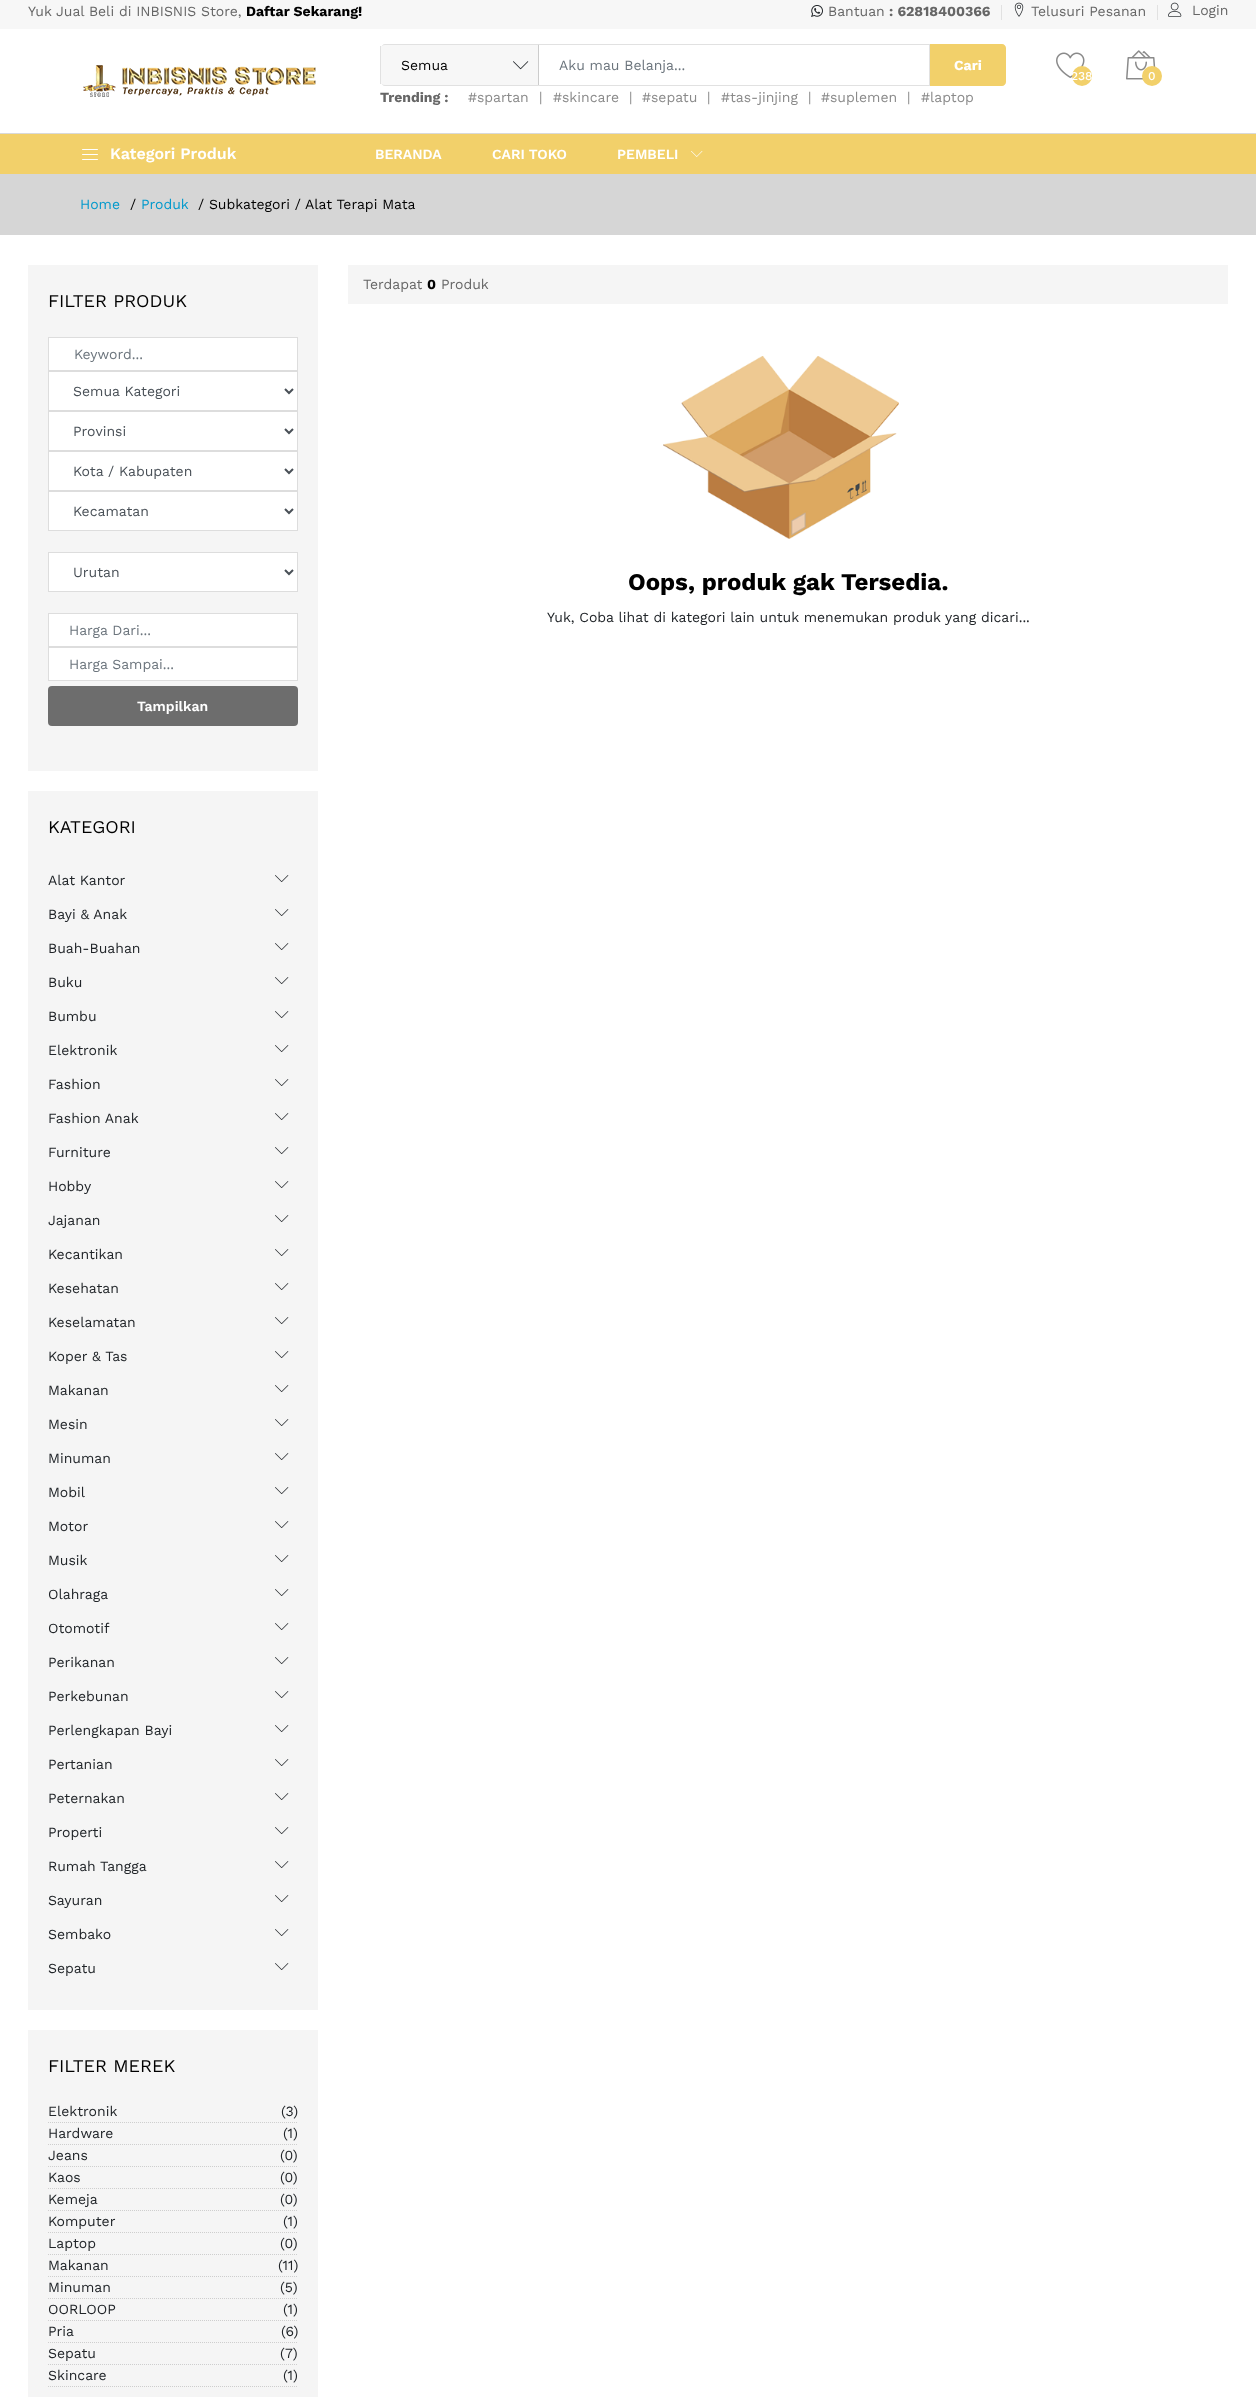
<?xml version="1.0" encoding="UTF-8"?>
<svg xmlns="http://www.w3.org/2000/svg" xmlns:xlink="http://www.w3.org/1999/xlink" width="1256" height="2397">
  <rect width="100%" height="100%" fill="#ffffff" />
  <rect width="1256" height="29" fill="#f7f7f7" />
  <image x="811" y="5" width="12" height="12" xlink:href="image1.png" />
  <rect x="1001" y="5" width="1" height="15" fill="#e1e1e1" />
  <image x="1014" y="2" width="10" height="15" xlink:href="image2.png" />
  <rect x="1157" y="5" width="1" height="15" fill="#e1e1e1" />
  <image x="1168" y="2" width="14" height="15" xlink:href="image3.png" />
  <rect y="133" width="1256" height="1" fill="#d9d9d9" />
  <image x="83" y="65" width="233" height="32" xlink:href="image4.png" />
  <rect x="380" y="46" width="1" height="38" fill="#e1e1e1" />
  <path d="M 385 45 h 153 v 40 h -153 c -2 0 -4 -1 -4 -3 v -34 c 0 -2 2 -3 4 -3 z" fill="#f7f7f7" />
  <path d="M 385 44 c -2 0 -4 2 -4 4 c 0 -2 2 -3 4 -3 h 153 l 1 -1 z" fill="#e1e1e1" />
  <path d="M 539 44 v 42 l -1 -1 v -40 z" fill="#cccccc" />
  <path d="M 539 86 l -1 -1 h -153 c -2 0 -4 -1 -4 -3 c 0 2 2 4 4 4 z" fill="#e1e1e1" />
  <image x="513" y="61" width="16" height="9" xlink:href="image5.png" />
  <rect x="539" y="44" width="391" height="1" fill="#e1e1e1" />
  <rect x="929" y="44" width="1" height="42" fill="#e1e1e1" />
  <rect x="539" y="85" width="391" height="1" fill="#e1e1e1" />
  <path d="M 930 44 h 72 c 2 0 4 2 4 4 v 34 c 0 2 -2 4 -4 4 h -72 z" fill="#f2d06a" />
  <image x="1056" y="52" width="29" height="26" xlink:href="image6.png" />
  <circle cx="1082" cy="76" r="10" fill="#f2d06a" />
  <image x="1126" y="50" width="30" height="30" xlink:href="image7.png" />
  <circle cx="1152" cy="76" r="10" fill="#f2d06a" />
  <rect y="134" width="1256" height="40" fill="#f2d06a" />
  <image x="82" y="149" width="16" height="11" xlink:href="image8.png" />
  <image x="691" y="151" width="12" height="6" xlink:href="image9.png" />
  <rect y="174" width="1256" height="61" fill="#d6d6d6" />
  <rect x="28" y="265" width="290" height="506" fill="#f5f5f5" />
  <rect x="48.5" y="337.5" width="249" height="33" fill="#ffffff" stroke="#dddddd" />
  <rect x="48.5" y="371.5" width="249" height="39" fill="#ffffff" stroke="#dddddd" />
  <path d="M 285 389 l 4 4 l 4 -4" fill="none" stroke="#495057" stroke-width="2" />
  <rect x="48.5" y="411.5" width="249" height="39" fill="#ffffff" stroke="#dddddd" />
  <path d="M 285 429 l 4 4 l 4 -4" fill="none" stroke="#495057" stroke-width="2" />
  <rect x="48.5" y="451.5" width="249" height="39" fill="#ffffff" stroke="#dddddd" />
  <path d="M 285 469 l 4 4 l 4 -4" fill="none" stroke="#495057" stroke-width="2" />
  <rect x="48.5" y="491.5" width="249" height="39" fill="#ffffff" stroke="#dddddd" />
  <path d="M 285 509 l 4 4 l 4 -4" fill="none" stroke="#495057" stroke-width="2" />
  <rect x="48.5" y="552.5" width="249" height="39" fill="#ffffff" stroke="#dddddd" />
  <path d="M 285 570 l 4 4 l 4 -4" fill="none" stroke="#495057" stroke-width="2" />
  <rect x="48.5" y="613.5" width="249" height="33" fill="#ffffff" stroke="#dddddd" />
  <rect x="48.5" y="647.5" width="249" height="33" fill="#ffffff" stroke="#dddddd" />
  <rect x="48" y="686" width="250" height="40" rx="4" fill="#6d6d6d" />
  <rect x="28" y="791" width="290" height="1219" fill="#f5f5f5" />
  <image x="275" y="875" width="14" height="7" xlink:href="image10.png" />
  <image x="275" y="909" width="14" height="7" xlink:href="image10.png" />
  <image x="275" y="943" width="14" height="7" xlink:href="image10.png" />
  <image x="275" y="977" width="14" height="7" xlink:href="image10.png" />
  <image x="275" y="1011" width="14" height="7" xlink:href="image10.png" />
  <image x="275" y="1045" width="14" height="7" xlink:href="image10.png" />
  <image x="275" y="1079" width="14" height="7" xlink:href="image10.png" />
  <image x="275" y="1113" width="14" height="7" xlink:href="image10.png" />
  <image x="275" y="1147" width="14" height="7" xlink:href="image10.png" />
  <image x="275" y="1181" width="14" height="7" xlink:href="image10.png" />
  <image x="275" y="1215" width="14" height="7" xlink:href="image10.png" />
  <image x="275" y="1249" width="14" height="7" xlink:href="image10.png" />
  <image x="275" y="1283" width="14" height="7" xlink:href="image10.png" />
  <image x="275" y="1317" width="14" height="7" xlink:href="image10.png" />
  <image x="275" y="1351" width="14" height="7" xlink:href="image10.png" />
  <image x="275" y="1385" width="14" height="7" xlink:href="image10.png" />
  <image x="275" y="1419" width="14" height="7" xlink:href="image10.png" />
  <image x="275" y="1453" width="14" height="7" xlink:href="image10.png" />
  <image x="275" y="1487" width="14" height="7" xlink:href="image10.png" />
  <image x="275" y="1521" width="14" height="7" xlink:href="image10.png" />
  <image x="275" y="1555" width="14" height="7" xlink:href="image10.png" />
  <image x="275" y="1589" width="14" height="7" xlink:href="image10.png" />
  <image x="275" y="1623" width="14" height="7" xlink:href="image10.png" />
  <image x="275" y="1657" width="14" height="7" xlink:href="image10.png" />
  <image x="275" y="1691" width="14" height="7" xlink:href="image10.png" />
  <image x="275" y="1725" width="14" height="7" xlink:href="image10.png" />
  <image x="275" y="1759" width="14" height="7" xlink:href="image10.png" />
  <image x="275" y="1793" width="14" height="7" xlink:href="image10.png" />
  <image x="275" y="1827" width="14" height="7" xlink:href="image10.png" />
  <image x="275" y="1861" width="14" height="7" xlink:href="image10.png" />
  <image x="275" y="1895" width="14" height="7" xlink:href="image10.png" />
  <image x="275" y="1929" width="14" height="7" xlink:href="image10.png" />
  <image x="275" y="1963" width="14" height="7" xlink:href="image10.png" />
  <rect x="28" y="2030" width="290" height="367" fill="#f5f5f5" />
  <path d="M 48 2122.5 h 250" fill="none" stroke="#cecece" stroke-dasharray="1 1" />
  <path d="M 48 2144.5 h 250" fill="none" stroke="#cecece" stroke-dasharray="1 1" />
  <path d="M 48 2166.5 h 250" fill="none" stroke="#cecece" stroke-dasharray="1 1" />
  <path d="M 48 2188.5 h 250" fill="none" stroke="#cecece" stroke-dasharray="1 1" />
  <path d="M 48 2210.5 h 250" fill="none" stroke="#cecece" stroke-dasharray="1 1" />
  <path d="M 48 2232.5 h 250" fill="none" stroke="#cecece" stroke-dasharray="1 1" />
  <path d="M 48 2254.5 h 250" fill="none" stroke="#cecece" stroke-dasharray="1 1" />
  <path d="M 48 2276.5 h 250" fill="none" stroke="#cecece" stroke-dasharray="1 1" />
  <path d="M 48 2298.5 h 250" fill="none" stroke="#cecece" stroke-dasharray="1 1" />
  <path d="M 48 2320.5 h 250" fill="none" stroke="#cecece" stroke-dasharray="1 1" />
  <path d="M 48 2342.5 h 250" fill="none" stroke="#cecece" stroke-dasharray="1 1" />
  <path d="M 48 2364.5 h 250" fill="none" stroke="#cecece" stroke-dasharray="1 1" />
  <path d="M 48 2386.5 h 250" fill="none" stroke="#cecece" stroke-dasharray="1 1" />
  <rect x="348" y="265" width="880" height="39" fill="#f5f5f5" />
  <image x="663" y="356" width="236" height="183" xlink:href="image11.png" />
  <text x="28" y="16" style="font-family: Work Sans; font-size: 14px; fill: #666666">Yuk Jual Beli di INBISNIS Store,</text>
  <text x="246" y="16" style="font-family: Work Sans; font-size: 14px; font-weight: bold; fill: #000000">Daftar Sekarang!</text>
  <text x="828" y="16" style="font-family: Work Sans; font-size: 14px; fill: #666666">Bantuan</text>
  <text x="889" y="16" style="font-family: Work Sans; font-size: 14px; font-weight: bold; fill: #666666">: 62818400366</text>
  <text x="1031" y="16" style="font-family: Work Sans; font-size: 14px; fill: #666666">Telusuri Pesanan</text>
  <text x="1192" y="15" style="font-family: Work Sans; font-size: 14px; fill: #666666">Login</text>
  <text x="401" y="70" style="font-family: Work Sans; font-size: 14px; fill: #000000">Semua</text>
  <text x="559" y="70" style="font-family: Work Sans; font-size: 14px; fill: #6c757d">Aku mau Belanja...</text>
  <text x="954" y="70" style="font-family: Work Sans; font-size: 14px; font-weight: bold; fill: #ffffff">Cari</text>
  <text x="380" y="102" style="font-family: Work Sans; font-size: 14px; font-weight: bold; fill: #666666">Trending :</text>
  <text x="468" y="102" style="font-family: Work Sans; font-size: 14px; fill: #8a8a8a">#spartan</text>
  <text x="539" y="102" style="font-family: Work Sans; font-size: 14px; fill: #8a8a8a">|</text>
  <text x="553" y="102" style="font-family: Work Sans; font-size: 14px; fill: #8a8a8a">#skincare</text>
  <text x="629" y="102" style="font-family: Work Sans; font-size: 14px; fill: #8a8a8a">|</text>
  <text x="642" y="102" style="font-family: Work Sans; font-size: 14px; fill: #8a8a8a">#sepatu</text>
  <text x="707" y="102" style="font-family: Work Sans; font-size: 14px; fill: #8a8a8a">|</text>
  <text x="721" y="102" style="font-family: Work Sans; font-size: 14px; fill: #8a8a8a">#tas-jinjing</text>
  <text x="808" y="102" style="font-family: Work Sans; font-size: 14px; fill: #8a8a8a">|</text>
  <text x="821" y="102" style="font-family: Work Sans; font-size: 14px; fill: #8a8a8a">#suplemen</text>
  <text x="907" y="102" style="font-family: Work Sans; font-size: 14px; fill: #8a8a8a">|</text>
  <text x="921" y="102" style="font-family: Work Sans; font-size: 14px; fill: #8a8a8a">#laptop</text>
  <text x="1071" y="80" style="font-family: Work Sans; font-size: 12px; font-weight: 500; fill: #ffffff">238</text>
  <text x="1148" y="80" style="font-family: Work Sans; font-size: 12px; font-weight: 500; fill: #ffffff">0</text>
  <text x="110" y="159" style="font-family: Work Sans; font-size: 16px; font-weight: 600; fill: #ffffff">Kategori Produk</text>
  <text x="375" y="159" style="font-family: Work Sans; font-size: 14px; font-weight: 600; fill: #ffffff">BERANDA</text>
  <text x="492" y="159" style="font-family: Work Sans; font-size: 14px; font-weight: 600; fill: #ffffff">CARI TOKO</text>
  <text x="617" y="159" style="font-family: Work Sans; font-size: 14px; font-weight: 600; fill: #ffffff">PEMBELI</text>
  <text x="80" y="209" style="font-family: Work Sans; font-size: 14px; fill: #0099cc">Home</text>
  <text x="130" y="209" style="font-family: Work Sans; font-size: 14px; fill: #000000">/</text>
  <text x="141" y="209" style="font-family: Work Sans; font-size: 14px; fill: #0099cc">Produk</text>
  <text x="198" y="209" style="font-family: Work Sans; font-size: 14px; fill: #000000">/ Subkategori / Alat Terapi Mata</text>
  <text x="48" y="307" style="font-family: Work Sans; font-size: 18px; fill: #000000">FILTER PRODUK</text>
  <text x="74" y="359" style="font-family: Work Sans; font-size: 14px; fill: #6c757d">Keyword...</text>
  <text x="73" y="396" style="font-family: Work Sans; font-size: 14px; fill: #495057">Semua Kategori</text>
  <text x="73" y="436" style="font-family: Work Sans; font-size: 14px; fill: #495057">Provinsi</text>
  <text x="73" y="476" style="font-family: Work Sans; font-size: 14px; fill: #495057">Kota / Kabupaten</text>
  <text x="73" y="516" style="font-family: Work Sans; font-size: 14px; fill: #495057">Kecamatan</text>
  <text x="73" y="577" style="font-family: Work Sans; font-size: 14px; fill: #495057">Urutan</text>
  <text x="69" y="635" style="font-family: Work Sans; font-size: 14px; fill: #6c757d">Harga Dari...</text>
  <text x="69" y="669" style="font-family: Work Sans; font-size: 14px; fill: #6c757d">Harga Sampai...</text>
  <text x="137" y="711" style="font-family: Work Sans; font-size: 14px; font-weight: 600; fill: #ffffff">Tampilkan</text>
  <text x="48" y="833" style="font-family: Work Sans; font-size: 18px; fill: #000000">KATEGORI</text>
  <text x="48" y="885" style="font-family: Work Sans; font-size: 14px; fill: #212529">Alat Kantor</text>
  <text x="48" y="919" style="font-family: Work Sans; font-size: 14px; fill: #212529">Bayi &amp; Anak</text>
  <text x="48" y="953" style="font-family: Work Sans; font-size: 14px; fill: #212529">Buah-Buahan</text>
  <text x="48" y="987" style="font-family: Work Sans; font-size: 14px; fill: #212529">Buku</text>
  <text x="48" y="1021" style="font-family: Work Sans; font-size: 14px; fill: #212529">Bumbu</text>
  <text x="48" y="1055" style="font-family: Work Sans; font-size: 14px; fill: #212529">Elektronik</text>
  <text x="48" y="1089" style="font-family: Work Sans; font-size: 14px; fill: #212529">Fashion</text>
  <text x="48" y="1123" style="font-family: Work Sans; font-size: 14px; fill: #212529">Fashion Anak</text>
  <text x="48" y="1157" style="font-family: Work Sans; font-size: 14px; fill: #212529">Furniture</text>
  <text x="48" y="1191" style="font-family: Work Sans; font-size: 14px; fill: #212529">Hobby</text>
  <text x="48" y="1225" style="font-family: Work Sans; font-size: 14px; fill: #212529">Jajanan</text>
  <text x="48" y="1259" style="font-family: Work Sans; font-size: 14px; fill: #212529">Kecantikan</text>
  <text x="48" y="1293" style="font-family: Work Sans; font-size: 14px; fill: #212529">Kesehatan</text>
  <text x="48" y="1327" style="font-family: Work Sans; font-size: 14px; fill: #212529">Keselamatan</text>
  <text x="48" y="1361" style="font-family: Work Sans; font-size: 14px; fill: #212529">Koper &amp; Tas</text>
  <text x="48" y="1395" style="font-family: Work Sans; font-size: 14px; fill: #212529">Makanan</text>
  <text x="48" y="1429" style="font-family: Work Sans; font-size: 14px; fill: #212529">Mesin</text>
  <text x="48" y="1463" style="font-family: Work Sans; font-size: 14px; fill: #212529">Minuman</text>
  <text x="48" y="1497" style="font-family: Work Sans; font-size: 14px; fill: #212529">Mobil</text>
  <text x="48" y="1531" style="font-family: Work Sans; font-size: 14px; fill: #212529">Motor</text>
  <text x="48" y="1565" style="font-family: Work Sans; font-size: 14px; fill: #212529">Musik</text>
  <text x="48" y="1599" style="font-family: Work Sans; font-size: 14px; fill: #212529">Olahraga</text>
  <text x="48" y="1633" style="font-family: Work Sans; font-size: 14px; fill: #212529">Otomotif</text>
  <text x="48" y="1667" style="font-family: Work Sans; font-size: 14px; fill: #212529">Perikanan</text>
  <text x="48" y="1701" style="font-family: Work Sans; font-size: 14px; fill: #212529">Perkebunan</text>
  <text x="48" y="1735" style="font-family: Work Sans; font-size: 14px; fill: #212529">Perlengkapan Bayi</text>
  <text x="48" y="1769" style="font-family: Work Sans; font-size: 14px; fill: #212529">Pertanian</text>
  <text x="48" y="1803" style="font-family: Work Sans; font-size: 14px; fill: #212529">Peternakan</text>
  <text x="48" y="1837" style="font-family: Work Sans; font-size: 14px; fill: #212529">Properti</text>
  <text x="48" y="1871" style="font-family: Work Sans; font-size: 14px; fill: #212529">Rumah Tangga</text>
  <text x="48" y="1905" style="font-family: Work Sans; font-size: 14px; fill: #212529">Sayuran</text>
  <text x="48" y="1939" style="font-family: Work Sans; font-size: 14px; fill: #212529">Sembako</text>
  <text x="48" y="1973" style="font-family: Work Sans; font-size: 14px; fill: #212529">Sepatu</text>
  <text x="48" y="2072" style="font-family: Work Sans; font-size: 18px; fill: #000000">FILTER MEREK</text>
  <text x="48" y="2116" style="font-family: Work Sans; font-size: 14px; fill: #212529">Elektronik</text>
  <text x="281" y="2116" style="font-family: Work Sans; font-size: 14px; fill: #212529">(3)</text>
  <text x="48" y="2138" style="font-family: Work Sans; font-size: 14px; fill: #212529">Hardware</text>
  <text x="283" y="2138" style="font-family: Work Sans; font-size: 14px; fill: #212529">(1)</text>
  <text x="48" y="2160" style="font-family: Work Sans; font-size: 14px; fill: #212529">Jeans</text>
  <text x="280" y="2160" style="font-family: Work Sans; font-size: 14px; fill: #212529">(0)</text>
  <text x="48" y="2182" style="font-family: Work Sans; font-size: 14px; fill: #212529">Kaos</text>
  <text x="280" y="2182" style="font-family: Work Sans; font-size: 14px; fill: #212529">(0)</text>
  <text x="48" y="2204" style="font-family: Work Sans; font-size: 14px; fill: #212529">Kemeja</text>
  <text x="280" y="2204" style="font-family: Work Sans; font-size: 14px; fill: #212529">(0)</text>
  <text x="48" y="2226" style="font-family: Work Sans; font-size: 14px; fill: #212529">Komputer</text>
  <text x="283" y="2226" style="font-family: Work Sans; font-size: 14px; fill: #212529">(1)</text>
  <text x="48" y="2248" style="font-family: Work Sans; font-size: 14px; fill: #212529">Laptop</text>
  <text x="280" y="2248" style="font-family: Work Sans; font-size: 14px; fill: #212529">(0)</text>
  <text x="48" y="2270" style="font-family: Work Sans; font-size: 14px; fill: #212529">Makanan</text>
  <text x="278" y="2270" style="font-family: Work Sans; font-size: 14px; fill: #212529">(11)</text>
  <text x="48" y="2292" style="font-family: Work Sans; font-size: 14px; fill: #212529">Minuman</text>
  <text x="280" y="2292" style="font-family: Work Sans; font-size: 14px; fill: #212529">(5)</text>
  <text x="48" y="2314" style="font-family: Work Sans; font-size: 14px; fill: #212529">OORLOOP</text>
  <text x="283" y="2314" style="font-family: Work Sans; font-size: 14px; fill: #212529">(1)</text>
  <text x="48" y="2336" style="font-family: Work Sans; font-size: 14px; fill: #212529">Pria</text>
  <text x="281" y="2336" style="font-family: Work Sans; font-size: 14px; fill: #212529">(6)</text>
  <text x="48" y="2358" style="font-family: Work Sans; font-size: 14px; fill: #212529">Sepatu</text>
  <text x="280" y="2358" style="font-family: Work Sans; font-size: 14px; fill: #212529">(7)</text>
  <text x="48" y="2380" style="font-family: Work Sans; font-size: 14px; fill: #212529">Skincare</text>
  <text x="283" y="2380" style="font-family: Work Sans; font-size: 14px; fill: #212529">(1)</text>
  <text x="363" y="289" style="font-family: Work Sans; font-size: 14px; fill: #666666">Terdapat</text>
  <text x="427" y="289" style="font-family: Work Sans; font-size: 14px; font-weight: bold; fill: #000000">0</text>
  <text x="441" y="289" style="font-family: Work Sans; font-size: 14px; fill: #666666">Produk</text>
  <text x="628" y="590" style="font-family: Work Sans; font-size: 24px; font-weight: bold; fill: #000000">Oops, produk gak Tersedia.</text>
  <text x="547" y="622" style="font-family: Work Sans; font-size: 14px; fill: #212529">Yuk, Coba lihat di kategori lain untuk menemukan produk yang dicari...</text>
</svg>
